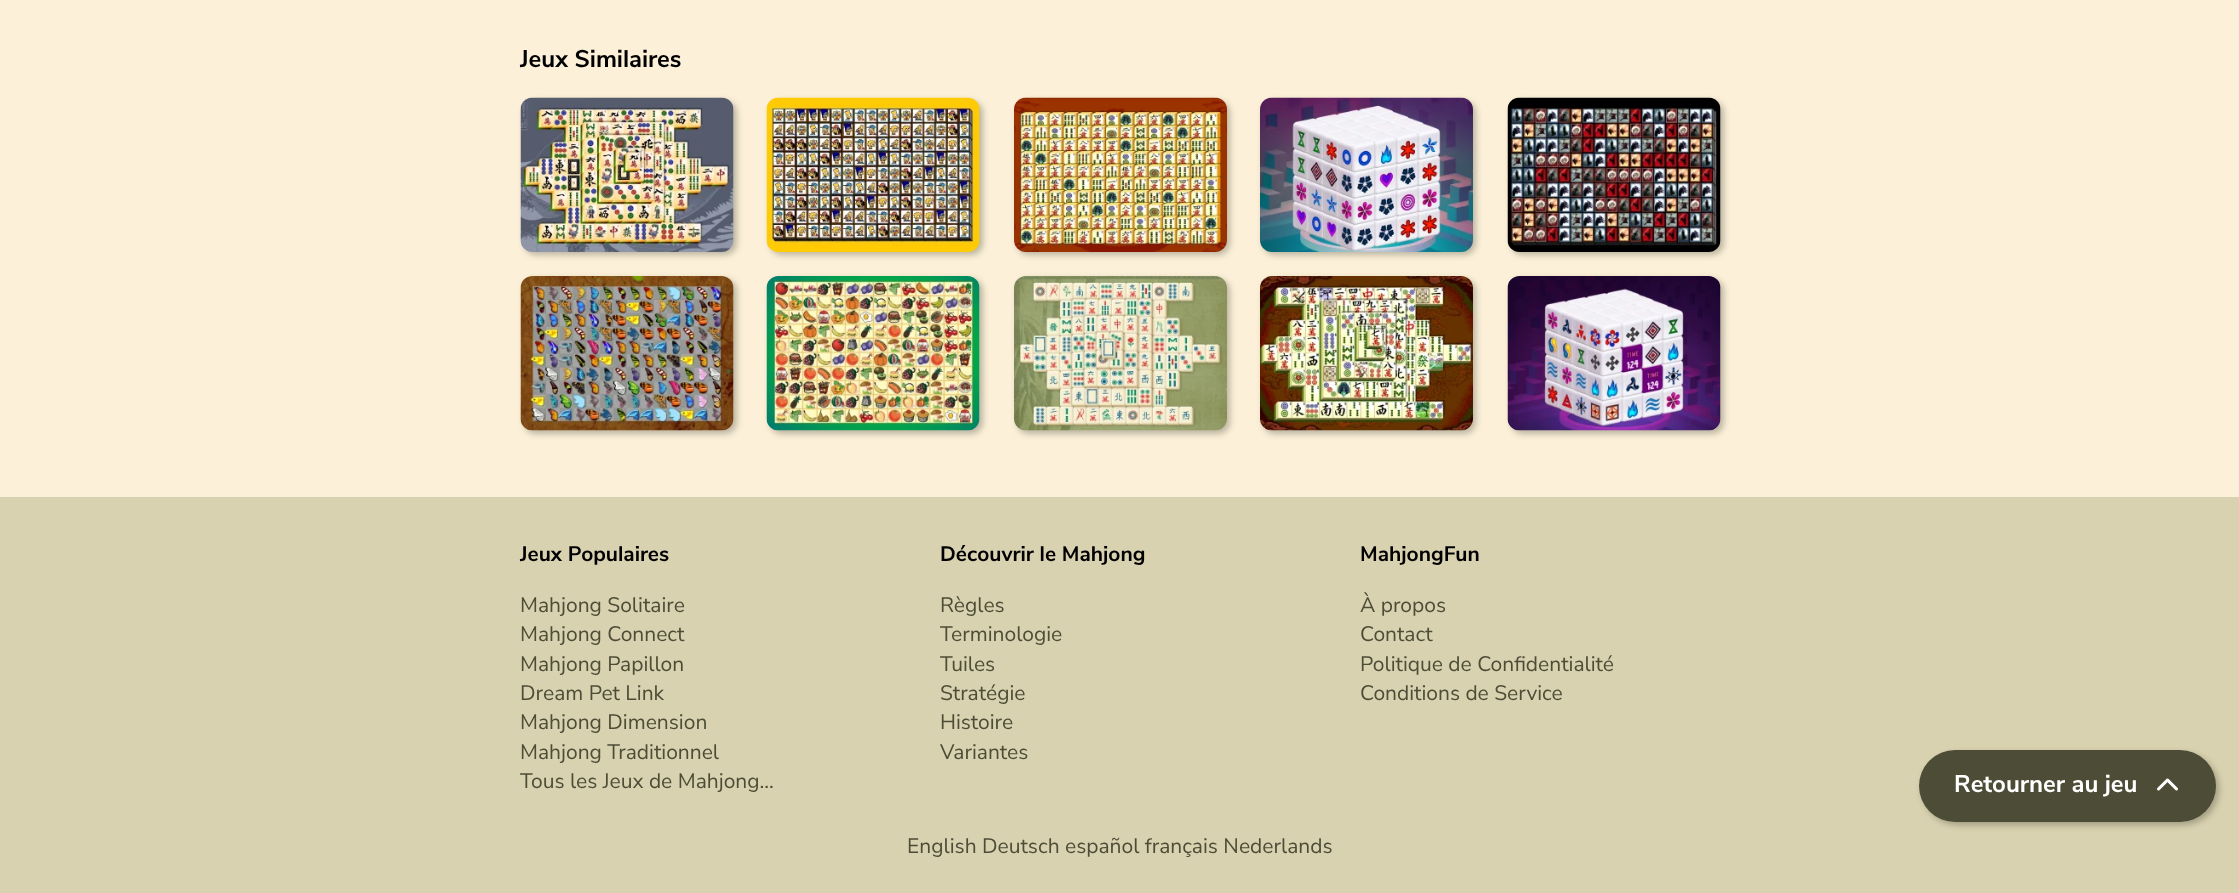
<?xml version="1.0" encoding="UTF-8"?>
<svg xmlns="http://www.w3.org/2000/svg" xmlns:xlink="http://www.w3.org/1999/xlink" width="2239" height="893">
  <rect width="100%" height="100%" fill="#fcf1d8" />
  <rect x="524" y="101" width="213" height="154" rx="12" fill="#000000" fill-opacity="0.25" filter="blur(3px)" />
  <image x="520" y="97" width="214" height="155" xlink:href="image1.png" />
  <rect x="770" y="101" width="213" height="154" rx="12" fill="#000000" fill-opacity="0.25" filter="blur(3px)" />
  <image x="766" y="97" width="214" height="155" xlink:href="image2.png" />
  <rect x="1017" y="101" width="213" height="154" rx="12" fill="#000000" fill-opacity="0.25" filter="blur(3px)" />
  <image x="1014" y="97" width="213" height="155" xlink:href="image3.png" />
  <rect x="1263" y="101" width="213" height="154" rx="12" fill="#000000" fill-opacity="0.25" filter="blur(3px)" />
  <image x="1260" y="97" width="213" height="155" xlink:href="image4.png" />
  <rect x="1511" y="101" width="213" height="154" rx="12" fill="#000000" fill-opacity="0.25" filter="blur(3px)" />
  <image x="1507" y="97" width="214" height="155" xlink:href="image5.png" />
  <rect x="524" y="279" width="213" height="155" rx="12" fill="#000000" fill-opacity="0.25" filter="blur(3px)" />
  <image x="520" y="276" width="214" height="155" xlink:href="image6.png" />
  <rect x="770" y="279" width="213" height="155" rx="12" fill="#000000" fill-opacity="0.25" filter="blur(3px)" />
  <image x="766" y="276" width="214" height="155" xlink:href="image7.png" />
  <rect x="1017" y="279" width="213" height="155" rx="12" fill="#000000" fill-opacity="0.25" filter="blur(3px)" />
  <image x="1014" y="276" width="213" height="155" xlink:href="image8.png" />
  <rect x="1263" y="279" width="213" height="155" rx="12" fill="#000000" fill-opacity="0.25" filter="blur(3px)" />
  <image x="1260" y="276" width="213" height="155" xlink:href="image9.png" />
  <rect x="1511" y="279" width="213" height="155" rx="12" fill="#000000" fill-opacity="0.25" filter="blur(3px)" />
  <image x="1507" y="276" width="214" height="155" xlink:href="image10.png" />
  <rect y="497" width="2239" height="396" fill="#d9d2b0" />
  <rect x="1922" y="753" width="297" height="72" rx="36" fill="#000000" fill-opacity="0.25" filter="blur(3px)" />
  <rect x="1919" y="750" width="297" height="72" rx="36" fill="#4d4d37" />
  <image x="2157" y="778" width="21" height="13" xlink:href="image11.png" />
  <text x="520" y="67" style="font-family: Nunito Sans; font-size: 24px; font-weight: bold; fill: #000000">Jeux Similaires</text>
  <text x="1954" y="792" style="font-family: Nunito Sans; font-size: 24px; font-weight: bold; fill: #ffffff">Retourner au jeu</text>
  <text x="520" y="561" style="font-family: Nunito Sans; font-size: 21px; font-weight: bold; fill: #000000">Jeux Populaires</text>
  <text x="520" y="612" style="font-family: Nunito Sans; font-size: 21px; fill: #4d4d37">Mahjong Solitaire</text>
  <text x="520" y="641" style="font-family: Nunito Sans; font-size: 21px; fill: #4d4d37">Mahjong Connect</text>
  <text x="520" y="671" style="font-family: Nunito Sans; font-size: 21px; fill: #4d4d37">Mahjong Papillon</text>
  <text x="520" y="700" style="font-family: Nunito Sans; font-size: 21px; fill: #4d4d37">Dream Pet Link</text>
  <text x="520" y="729" style="font-family: Nunito Sans; font-size: 21px; fill: #4d4d37">Mahjong Dimension</text>
  <text x="520" y="759" style="font-family: Nunito Sans; font-size: 21px; fill: #4d4d37">Mahjong Traditionnel</text>
  <text x="520" y="788" style="font-family: Nunito Sans; font-size: 21px; fill: #4d4d37">Tous les Jeux de Mahjong...</text>
  <text x="940" y="561" style="font-family: Nunito Sans; font-size: 21px; font-weight: bold; fill: #000000">Découvrir le Mahjong</text>
  <text x="940" y="612" style="font-family: Nunito Sans; font-size: 21px; fill: #4d4d37">Règles</text>
  <text x="940" y="641" style="font-family: Nunito Sans; font-size: 21px; fill: #4d4d37">Terminologie</text>
  <text x="940" y="671" style="font-family: Nunito Sans; font-size: 21px; fill: #4d4d37">Tuiles</text>
  <text x="940" y="700" style="font-family: Nunito Sans; font-size: 21px; fill: #4d4d37">Stratégie</text>
  <text x="940" y="729" style="font-family: Nunito Sans; font-size: 21px; fill: #4d4d37">Histoire</text>
  <text x="940" y="759" style="font-family: Nunito Sans; font-size: 21px; fill: #4d4d37">Variantes</text>
  <text x="1360" y="561" style="font-family: Nunito Sans; font-size: 21px; font-weight: bold; fill: #000000">MahjongFun</text>
  <text x="1360" y="612" style="font-family: Nunito Sans; font-size: 21px; fill: #4d4d37">À propos</text>
  <text x="1360" y="641" style="font-family: Nunito Sans; font-size: 21px; fill: #4d4d37">Contact</text>
  <text x="1360" y="671" style="font-family: Nunito Sans; font-size: 21px; fill: #4d4d37">Politique de Confidentialité</text>
  <text x="1360" y="700" style="font-family: Nunito Sans; font-size: 21px; fill: #4d4d37">Conditions de Service</text>
  <text x="907" y="853" style="font-family: Nunito Sans; font-size: 21px; fill: #4d4d37">English Deutsch español français Nederlands</text>
</svg>
